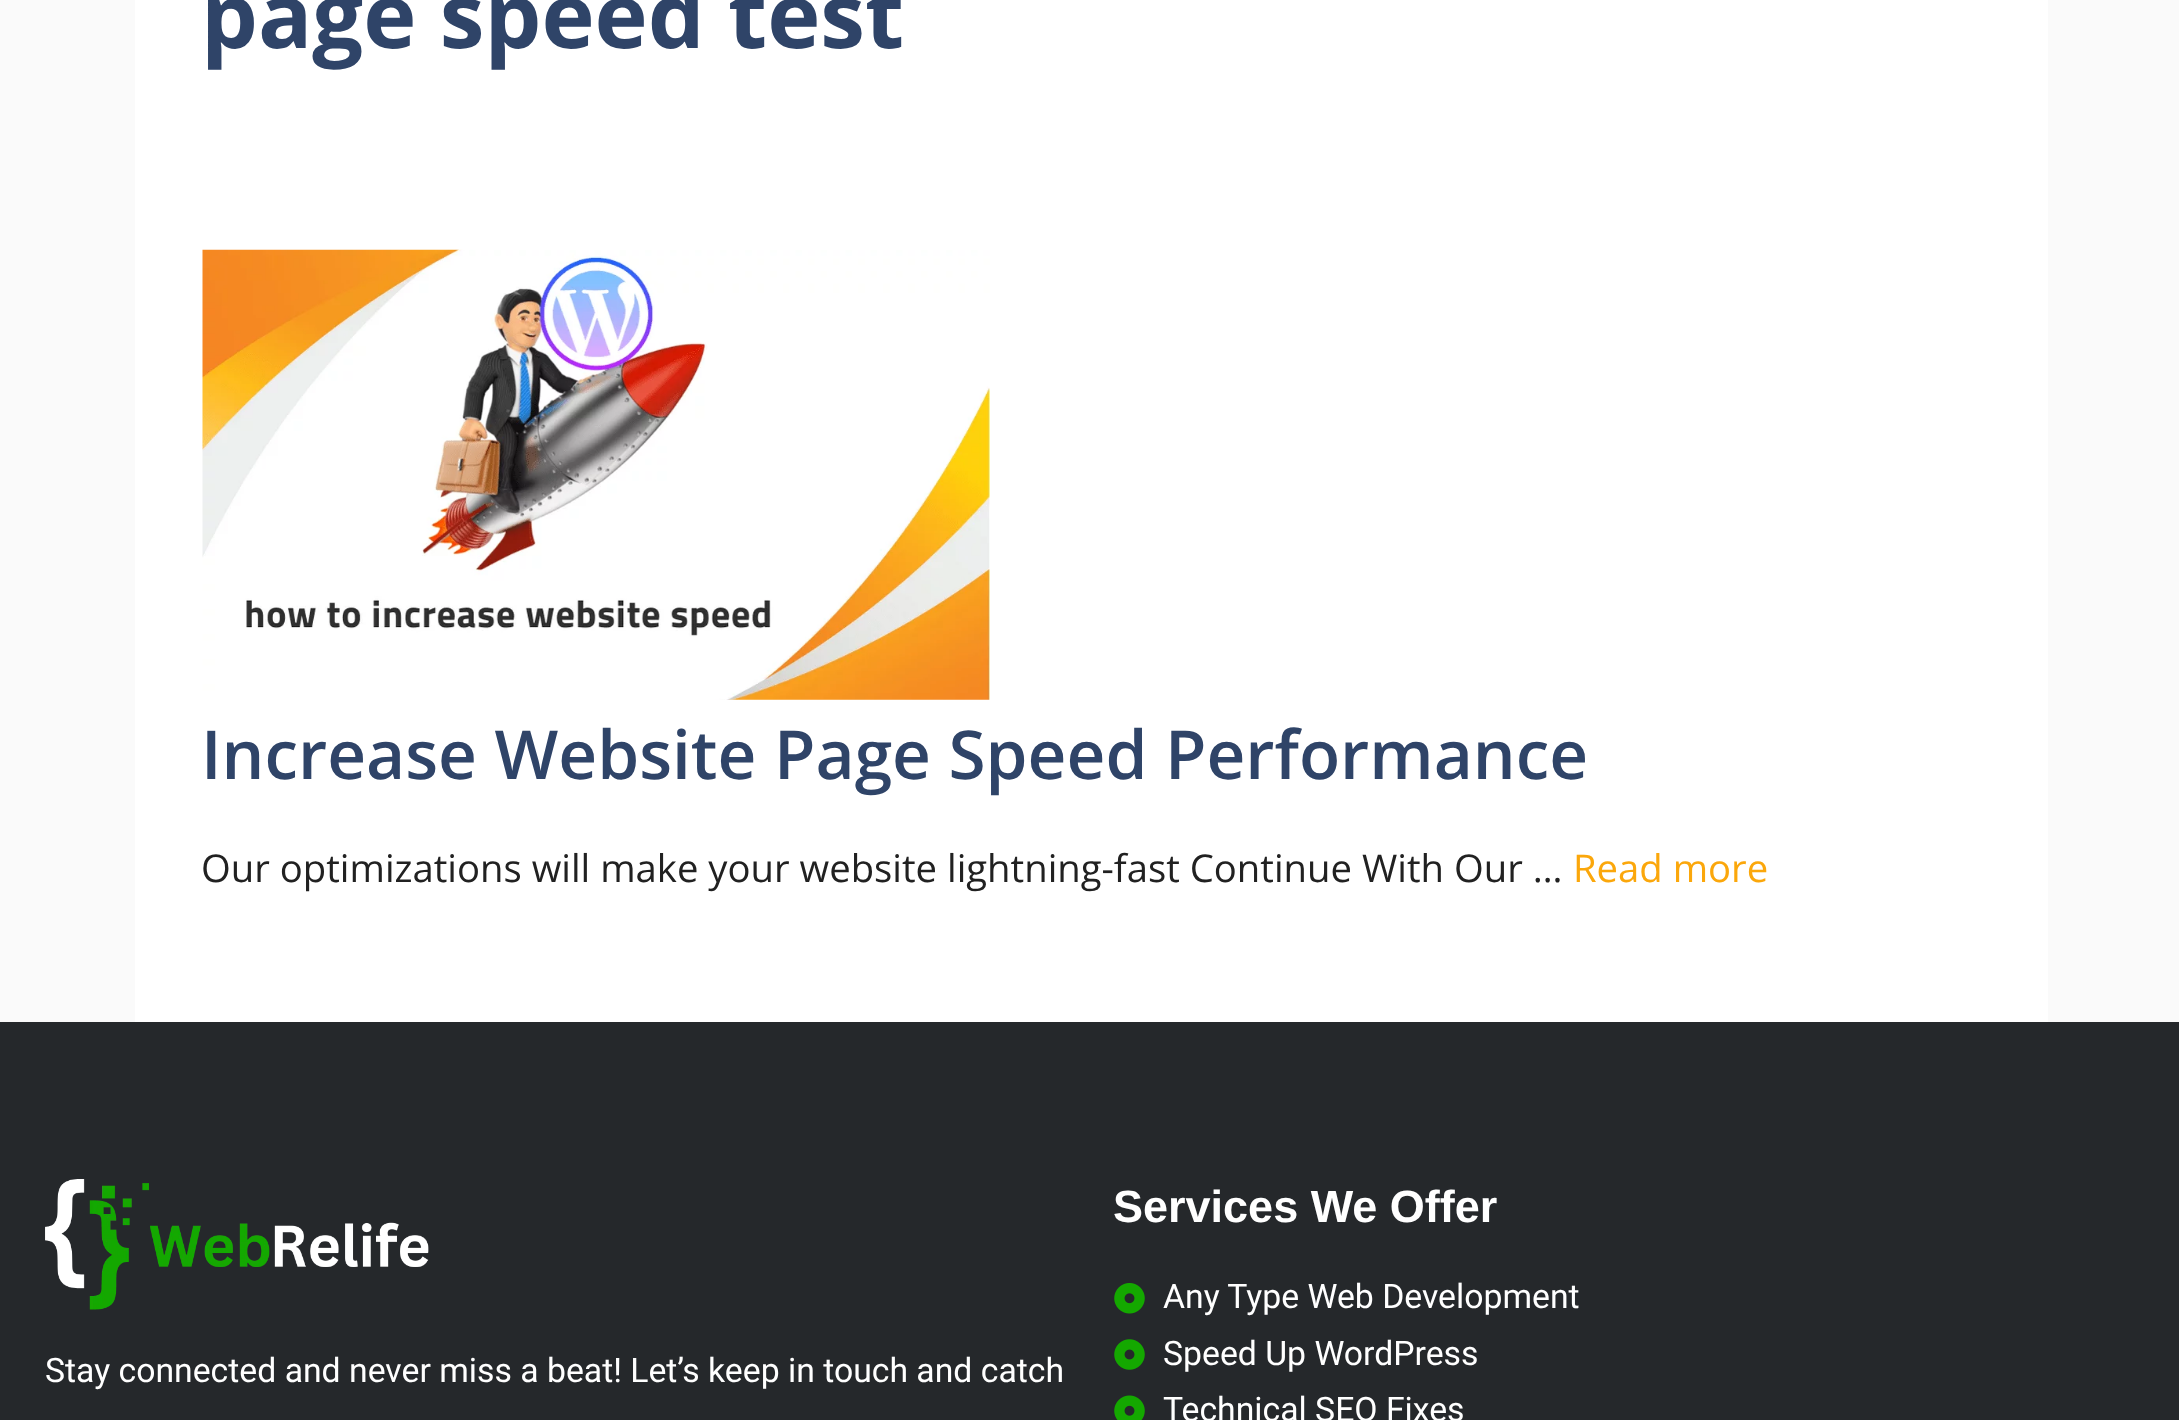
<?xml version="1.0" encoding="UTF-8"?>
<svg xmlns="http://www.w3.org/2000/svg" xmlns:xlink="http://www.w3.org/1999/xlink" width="2179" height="1420">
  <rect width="100%" height="100%" fill="#fafafa" />
  <rect x="135" width="1913" height="1022" fill="#ffffff" />
  <image x="202" y="249" width="788" height="451" xlink:href="image1.png" />
  <rect y="1022" width="2179" height="398" fill="#25282b" />
  <image x="45" y="1179" width="384" height="131" xlink:href="image2.png" />
  <image x="1114" y="1283" width="31" height="31" xlink:href="image3.png" />
  <image x="1114" y="1339" width="31" height="31" xlink:href="image4.png" />
  <image x="1114" y="1395" width="31" height="25" xlink:href="image5.png" />
  <text x="201" y="48" style="font-family: Open Sans; font-size: 90px; font-weight: bold; fill: #2f4468">page speed test</text>
  <text x="201" y="779" style="font-family: Open Sans; font-size: 67.5px; font-weight: 600; fill: #2f4468">Increase Website Page Speed Performance</text>
  <text x="201" y="882" style="font-family: Open Sans; font-size: 38.25px; fill: #212121">Our optimizations will make your website lightning-fast Continue With Our …</text>
  <text x="1573" y="882" style="font-family: Open Sans; font-size: 38.25px; fill: #fba70b">Read more</text>
  <text x="45" y="1382" style="font-family: Roboto; font-size: 33.75px; fill: #ffffff">Stay connected and never miss a beat! Let’s keep in touch and catch</text>
  <text x="1113" y="1222" style="font-family: Liberation Sans; font-size: 45px; font-weight: bold; fill: #ffffff">Services We Offer</text>
  <text x="1163" y="1308" style="font-family: Roboto; font-size: 33.75px; fill: #ffffff">Any Type Web Development</text>
  <text x="1163" y="1365" style="font-family: Roboto; font-size: 33.75px; fill: #ffffff">Speed Up WordPress</text>
  <text x="1163" y="1421" style="font-family: Roboto; font-size: 33.75px; fill: #ffffff">Technical SEO Fixes</text>
</svg>
